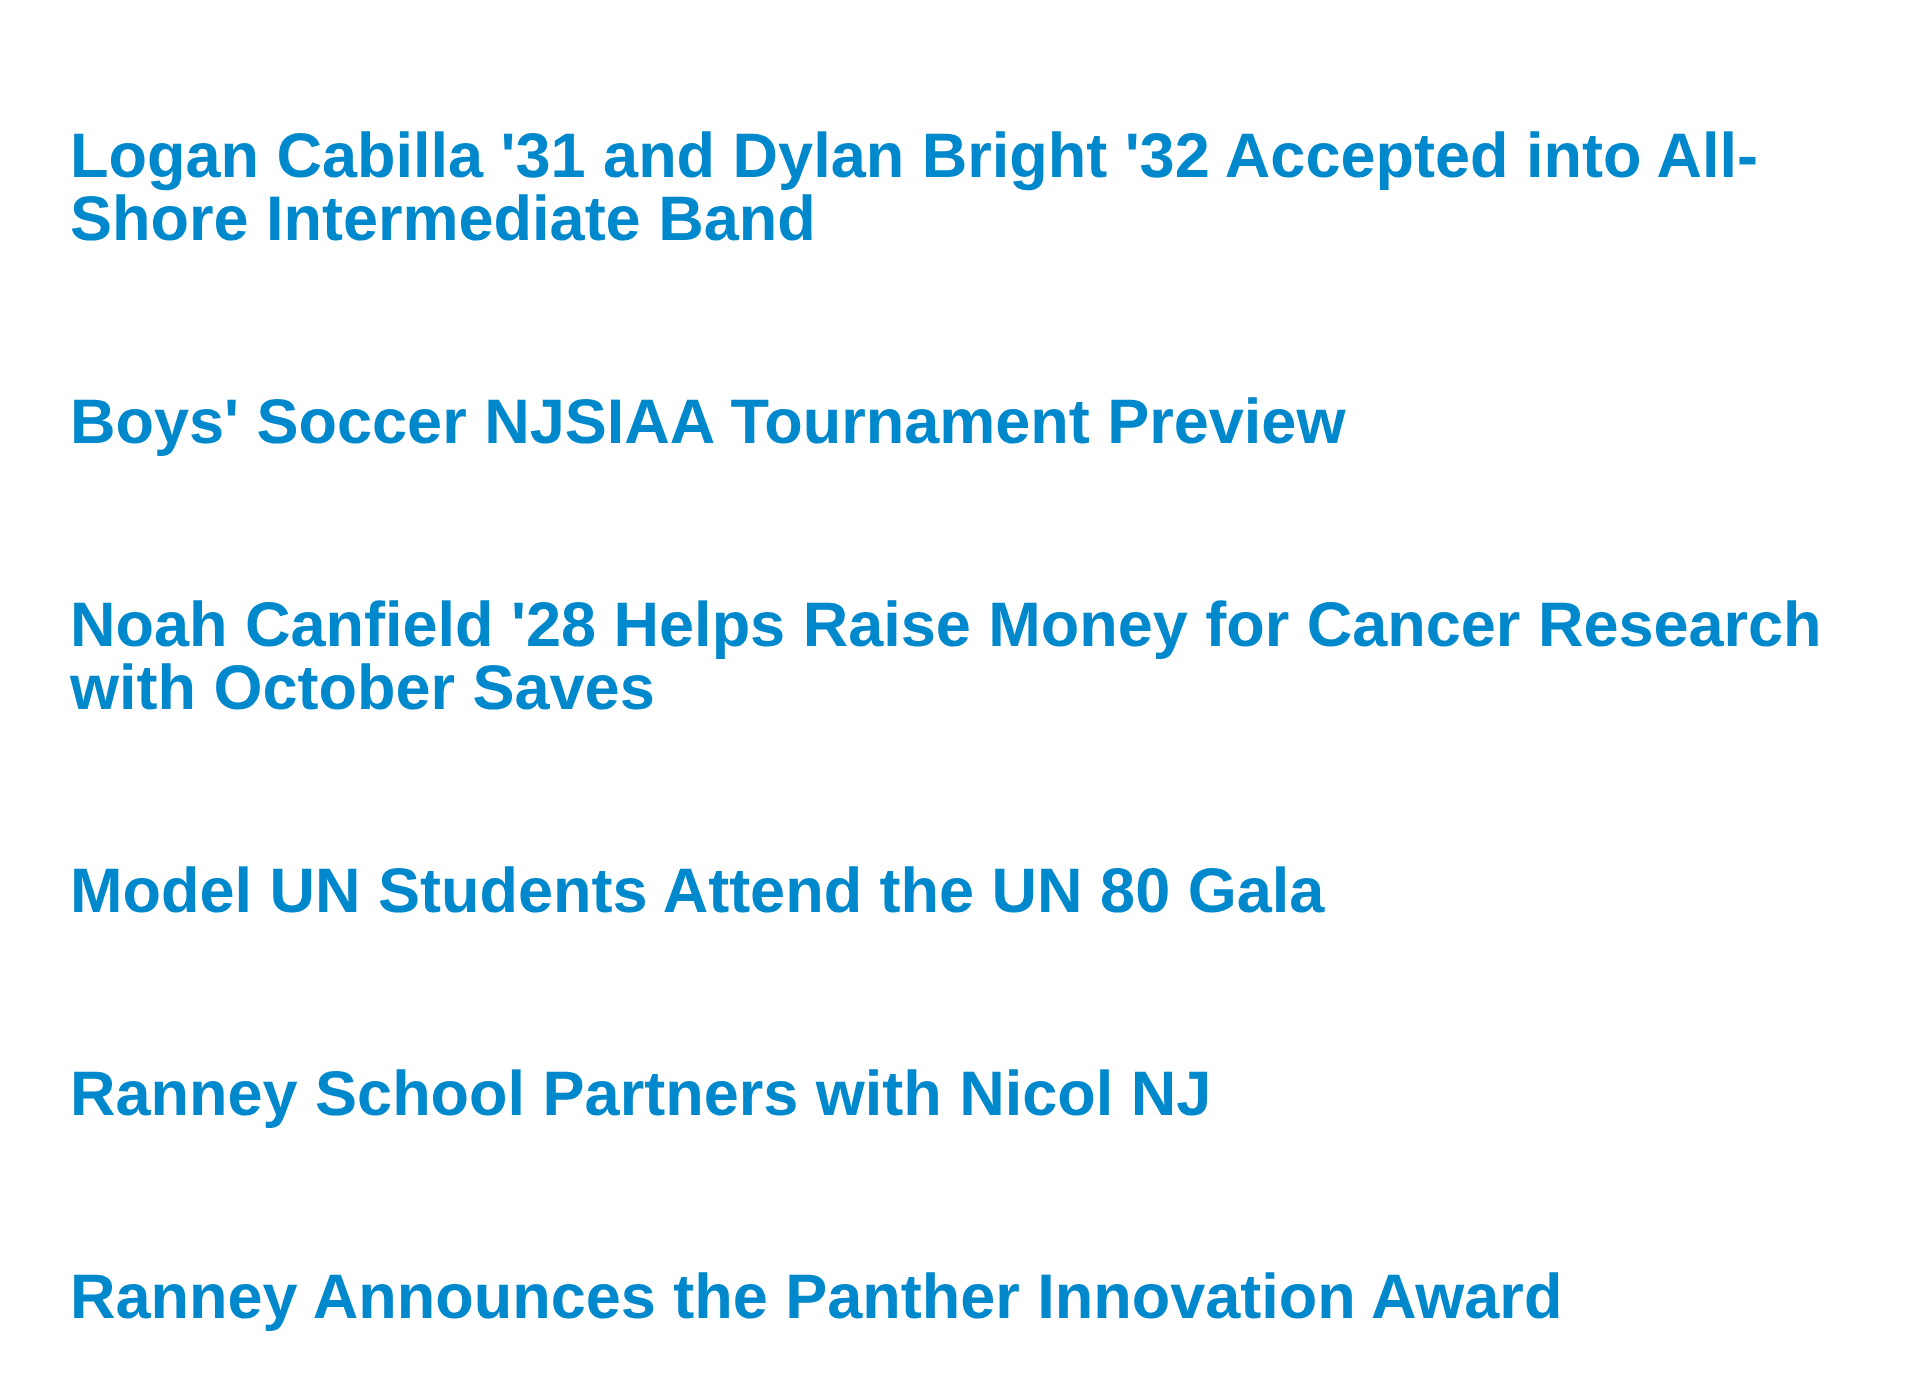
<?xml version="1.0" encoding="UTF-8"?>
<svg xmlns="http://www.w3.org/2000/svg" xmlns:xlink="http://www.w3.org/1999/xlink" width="1918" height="1398">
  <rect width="100%" height="100%" fill="#ffffff" />
  <text x="70" y="177" style="font-family: Liberation Sans; font-size: 63px; font-weight: bold; fill: #0088cc">Logan Cabilla '31 and Dylan Bright '32 Accepted into All-</text>
  <text x="70" y="240" style="font-family: Liberation Sans; font-size: 63px; font-weight: bold; fill: #0088cc">Shore Intermediate Band</text>
  <text x="70" y="443" style="font-family: Liberation Sans; font-size: 63px; font-weight: bold; fill: #0088cc">Boys' Soccer NJSIAA Tournament Preview</text>
  <text x="70" y="646" style="font-family: Liberation Sans; font-size: 63px; font-weight: bold; fill: #0088cc">Noah Canfield '28 Helps Raise Money for Cancer Research</text>
  <text x="70" y="709" style="font-family: Liberation Sans; font-size: 63px; font-weight: bold; fill: #0088cc">with October Saves</text>
  <text x="70" y="912" style="font-family: Liberation Sans; font-size: 63px; font-weight: bold; fill: #0088cc">Model UN Students Attend the UN 80 Gala</text>
  <text x="70" y="1115" style="font-family: Liberation Sans; font-size: 63px; font-weight: bold; fill: #0088cc">Ranney School Partners with Nicol NJ</text>
  <text x="70" y="1318" style="font-family: Liberation Sans; font-size: 63px; font-weight: bold; fill: #0088cc">Ranney Announces the Panther Innovation Award</text>
</svg>
